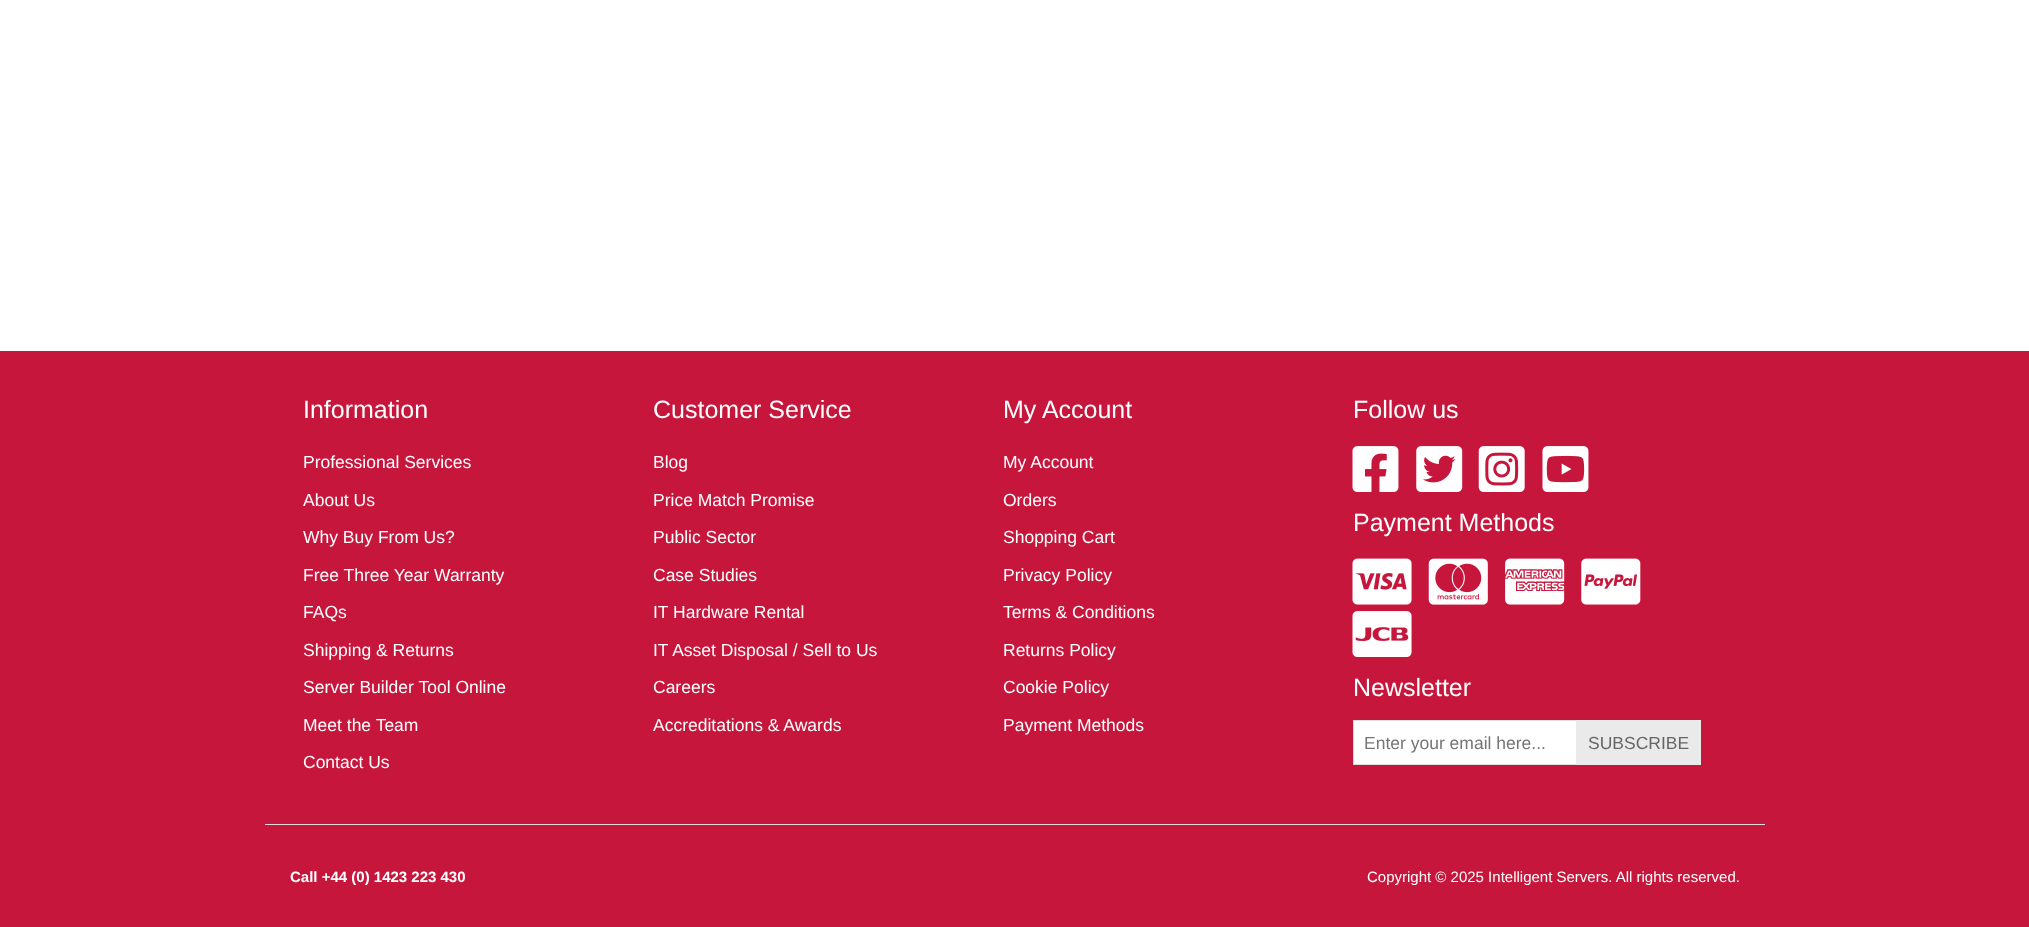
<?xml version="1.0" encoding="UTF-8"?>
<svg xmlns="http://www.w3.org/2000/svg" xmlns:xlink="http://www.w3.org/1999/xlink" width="2029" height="927">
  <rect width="100%" height="100%" fill="#ffffff" />
  <rect y="351" width="2029" height="576" fill="#c7163c" />
  <rect x="265" y="824" width="1500" height="1" fill="#dddddd" />
  <image x="1352" y="446" width="47" height="46" xlink:href="image1.png" />
  <image x="1416" y="446" width="47" height="46" xlink:href="image2.png" />
  <image x="1478" y="446" width="47" height="46" xlink:href="image3.png" />
  <image x="1542" y="446" width="47" height="46" xlink:href="image4.png" />
  <image x="1352" y="558" width="60" height="47" xlink:href="image5.png" />
  <image x="1428" y="558" width="60" height="47" xlink:href="image6.png" />
  <image x="1505" y="558" width="60" height="47" xlink:href="image7.png" />
  <image x="1581" y="558" width="60" height="47" xlink:href="image8.png" />
  <image x="1352" y="611" width="60" height="46" xlink:href="image9.png" />
  <rect x="1354" y="721" width="222" height="43" fill="#ffffff" />
  <rect x="1353.5" y="720.5" width="224" height="44" fill="none" stroke="#dddddd" />
  <rect x="1576" y="720" width="125" height="45" fill="#eaeaea" />
  <text x="303" y="418" style="font-family: Liberation Sans; font-size: 25px; fill: #ffffff">Information</text>
  <text x="303" y="468" style="font-family: Liberation Sans; font-size: 17.5px; fill: #ffffff">Professional Services</text>
  <text x="303" y="506" style="font-family: Liberation Sans; font-size: 17.5px; fill: #ffffff">About Us</text>
  <text x="303" y="543" style="font-family: Liberation Sans; font-size: 17.5px; fill: #ffffff">Why Buy From Us?</text>
  <text x="303" y="581" style="font-family: Liberation Sans; font-size: 17.5px; fill: #ffffff">Free Three Year Warranty</text>
  <text x="303" y="618" style="font-family: Liberation Sans; font-size: 17.5px; fill: #ffffff">FAQs</text>
  <text x="303" y="656" style="font-family: Liberation Sans; font-size: 17.5px; fill: #ffffff">Shipping &amp; Returns</text>
  <text x="303" y="693" style="font-family: Liberation Sans; font-size: 17.5px; fill: #ffffff">Server Builder Tool Online</text>
  <text x="303" y="731" style="font-family: Liberation Sans; font-size: 17.5px; fill: #ffffff">Meet the Team</text>
  <text x="303" y="768" style="font-family: Liberation Sans; font-size: 17.5px; fill: #ffffff">Contact Us</text>
  <text x="653" y="418" style="font-family: Liberation Sans; font-size: 25px; fill: #ffffff">Customer Service</text>
  <text x="653" y="468" style="font-family: Liberation Sans; font-size: 17.5px; fill: #ffffff">Blog</text>
  <text x="653" y="506" style="font-family: Liberation Sans; font-size: 17.5px; fill: #ffffff">Price Match Promise</text>
  <text x="653" y="543" style="font-family: Liberation Sans; font-size: 17.5px; fill: #ffffff">Public Sector</text>
  <text x="653" y="581" style="font-family: Liberation Sans; font-size: 17.5px; fill: #ffffff">Case Studies</text>
  <text x="653" y="618" style="font-family: Liberation Sans; font-size: 17.5px; fill: #ffffff">IT Hardware Rental</text>
  <text x="653" y="656" style="font-family: Liberation Sans; font-size: 17.5px; fill: #ffffff">IT Asset Disposal / Sell to Us</text>
  <text x="653" y="693" style="font-family: Liberation Sans; font-size: 17.5px; fill: #ffffff">Careers</text>
  <text x="653" y="731" style="font-family: Liberation Sans; font-size: 17.5px; fill: #ffffff">Accreditations &amp; Awards</text>
  <text x="1003" y="418" style="font-family: Liberation Sans; font-size: 25px; fill: #ffffff">My Account</text>
  <text x="1003" y="468" style="font-family: Liberation Sans; font-size: 17.5px; fill: #ffffff">My Account</text>
  <text x="1003" y="506" style="font-family: Liberation Sans; font-size: 17.5px; fill: #ffffff">Orders</text>
  <text x="1003" y="543" style="font-family: Liberation Sans; font-size: 17.5px; fill: #ffffff">Shopping Cart</text>
  <text x="1003" y="581" style="font-family: Liberation Sans; font-size: 17.5px; fill: #ffffff">Privacy Policy</text>
  <text x="1003" y="618" style="font-family: Liberation Sans; font-size: 17.5px; fill: #ffffff">Terms &amp; Conditions</text>
  <text x="1003" y="656" style="font-family: Liberation Sans; font-size: 17.5px; fill: #ffffff">Returns Policy</text>
  <text x="1003" y="693" style="font-family: Liberation Sans; font-size: 17.5px; fill: #ffffff">Cookie Policy</text>
  <text x="1003" y="731" style="font-family: Liberation Sans; font-size: 17.5px; fill: #ffffff">Payment Methods</text>
  <text x="1353" y="418" style="font-family: Liberation Sans; font-size: 25px; fill: #ffffff">Follow us</text>
  <text x="1353" y="531" style="font-family: Liberation Sans; font-size: 25px; fill: #ffffff">Payment Methods</text>
  <text x="1353" y="696" style="font-family: Liberation Sans; font-size: 25px; fill: #ffffff">Newsletter</text>
  <text x="1364" y="749" style="font-family: Liberation Sans; font-size: 17.5px; fill: #757575">Enter your email here...</text>
  <text x="1588" y="749" style="font-family: Liberation Sans; font-size: 17.5px; fill: #666666">SUBSCRIBE</text>
  <text x="290" y="882" style="font-family: Liberation Sans; font-size: 15px; font-weight: bold; fill: #ffffff">Call +44 (0) 1423 223 430</text>
  <text x="1367" y="882" style="font-family: Liberation Sans; font-size: 15px; fill: #ffffff">Copyright © 2025 Intelligent Servers. All rights reserved.</text>
</svg>
